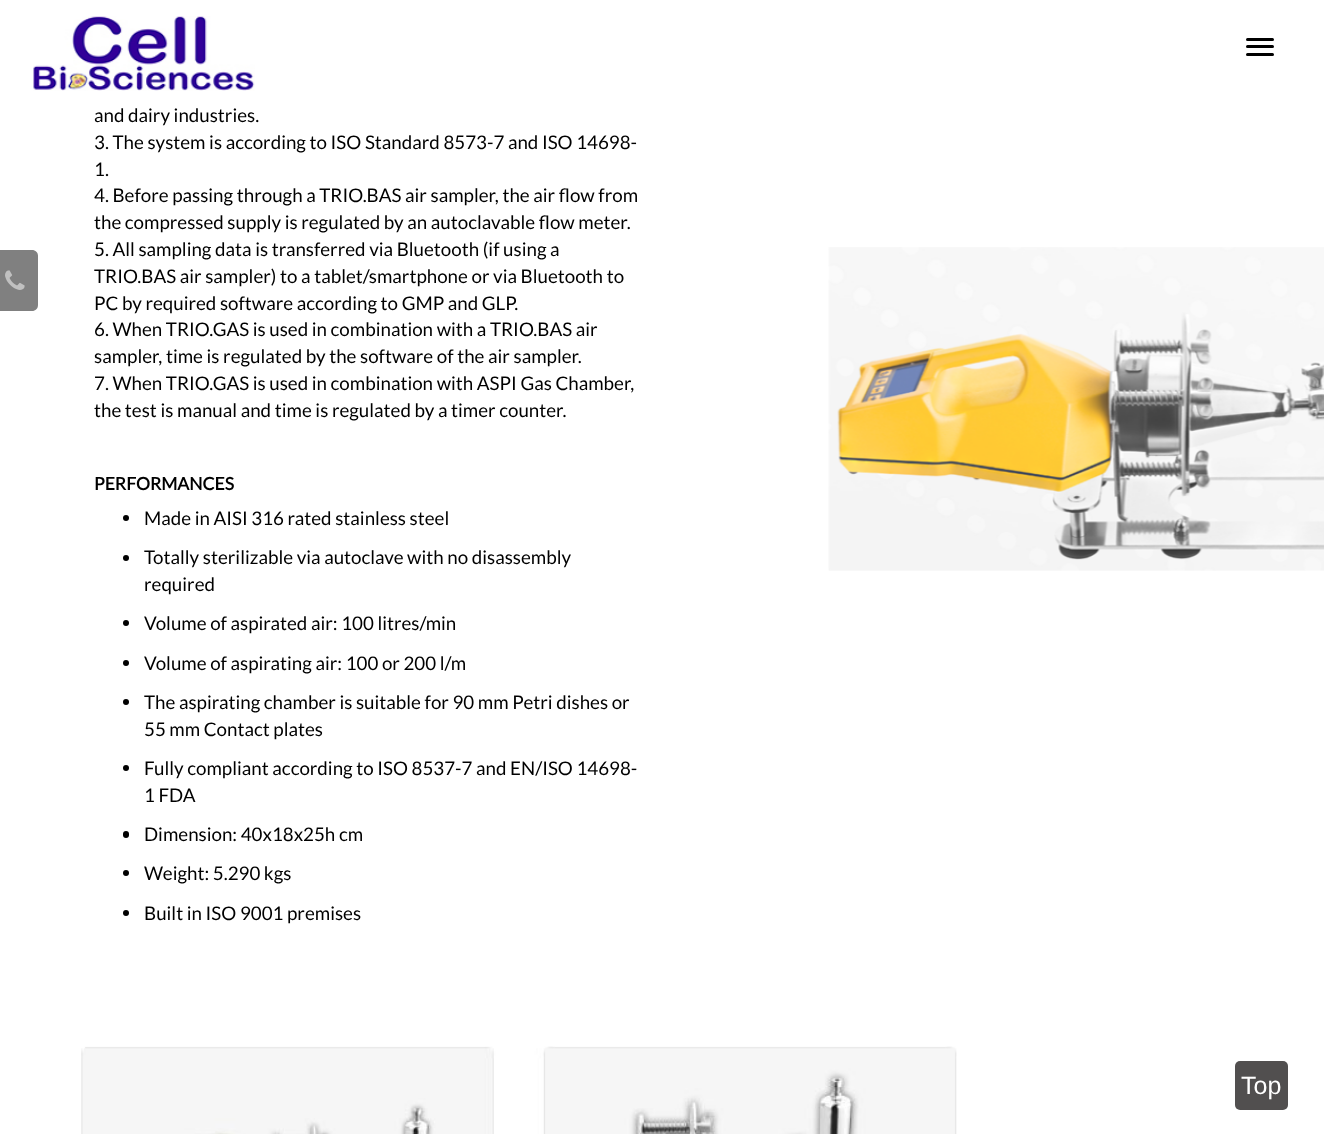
<?xml version="1.0" encoding="UTF-8"?>
<svg xmlns="http://www.w3.org/2000/svg" xmlns:xlink="http://www.w3.org/1999/xlink" width="1324" height="1134">
  <rect width="100%" height="100%" fill="#ffffff" />
  <image x="828" y="247" width="496" height="324" xlink:href="image1.png" />
  <image x="33" y="16" width="222" height="75" xlink:href="image2.png" />
  <rect x="1246" y="38" width="28" height="3" rx="1.5" fill="#000000" />
  <rect x="1246" y="45" width="28" height="3" rx="1.5" fill="#000000" />
  <rect x="1246" y="53" width="28" height="3" rx="1.5" fill="#000000" />
  <path d="M -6 250 h 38 c 3.5 0 6 2.5 6 6 v 49 c 0 3.5 -2.5 6 -6 6 h -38 z" fill="#808080" />
  <image x="5" y="270" width="20" height="20" xlink:href="image3.png" />
  <circle cx="126" cy="518" r="3" fill="#000000" />
  <circle cx="126" cy="558" r="3" fill="#000000" />
  <circle cx="126" cy="623" r="3" fill="#000000" />
  <circle cx="126" cy="663" r="3" fill="#000000" />
  <circle cx="126" cy="702" r="3" fill="#000000" />
  <circle cx="126" cy="768" r="3" fill="#000000" />
  <rect x="123" y="831" width="6" height="7" rx="3" fill="#000000" />
  <circle cx="126" cy="873" r="3" fill="#000000" />
  <circle cx="126" cy="913" r="3" fill="#000000" />
  <image x="81" y="1046" width="876" height="88" xlink:href="image4.png" />
  <rect x="1235" y="1061" width="53" height="49" rx="5" fill="#514f4f" />
  <text x="94" y="122" style="font-family: Lato; font-size: 18.75px; fill: #000000">and dairy industries.</text>
  <text x="94" y="149" style="font-family: Lato; font-size: 18.75px; fill: #000000">3. The system is according to ISO Standard 8573-7 and ISO 14698-</text>
  <text x="94" y="176" style="font-family: Lato; font-size: 18.75px; fill: #000000">1.</text>
  <text x="94" y="202" style="font-family: Lato; font-size: 18.75px; fill: #000000">4. Before passing through a TRIO.BAS air sampler, the air flow from</text>
  <text x="94" y="229" style="font-family: Lato; font-size: 18.75px; fill: #000000">the compressed supply is regulated by an autoclavable flow meter.</text>
  <text x="94" y="256" style="font-family: Lato; font-size: 18.75px; fill: #000000">5. All sampling data is transferred via Bluetooth (if using a</text>
  <text x="94" y="283" style="font-family: Lato; font-size: 18.75px; fill: #000000">TRIO.BAS air sampler) to a tablet/smartphone or via Bluetooth to</text>
  <text x="94" y="310" style="font-family: Lato; font-size: 18.75px; fill: #000000">PC by required software according to GMP and GLP.</text>
  <text x="94" y="336" style="font-family: Lato; font-size: 18.75px; fill: #000000">6. When TRIO.GAS is used in combination with a TRIO.BAS air</text>
  <text x="94" y="363" style="font-family: Lato; font-size: 18.75px; fill: #000000">sampler, time is regulated by the software of the air sampler.</text>
  <text x="94" y="390" style="font-family: Lato; font-size: 18.75px; fill: #000000">7. When TRIO.GAS is used in combination with ASPI Gas Chamber,</text>
  <text x="94" y="417" style="font-family: Lato; font-size: 18.75px; fill: #000000">the test is manual and time is regulated by a timer counter.</text>
  <text x="94" y="490" style="font-family: Lato; font-size: 17.5px; font-weight: bold; fill: #000000">PERFORMANCES</text>
  <text x="144" y="525" style="font-family: Lato; font-size: 18.75px; fill: #000000">Made in AISI 316 rated stainless steel</text>
  <text x="144" y="564" style="font-family: Lato; font-size: 18.75px; fill: #000000">Totally sterilizable via autoclave with no disassembly</text>
  <text x="144" y="591" style="font-family: Lato; font-size: 18.75px; fill: #000000">required</text>
  <text x="144" y="630" style="font-family: Lato; font-size: 18.75px; fill: #000000">Volume of aspirated air: 100 litres/min</text>
  <text x="144" y="670" style="font-family: Lato; font-size: 18.75px; fill: #000000">Volume of aspirating air: 100 or 200 l/m</text>
  <text x="144" y="709" style="font-family: Lato; font-size: 18.75px; fill: #000000">The aspirating chamber is suitable for 90 mm Petri dishes or</text>
  <text x="144" y="736" style="font-family: Lato; font-size: 18.75px; fill: #000000">55 mm Contact plates</text>
  <text x="144" y="775" style="font-family: Lato; font-size: 18.75px; fill: #000000">Fully compliant according to ISO 8537-7 and EN/ISO 14698-</text>
  <text x="144" y="802" style="font-family: Lato; font-size: 18.75px; fill: #000000">1 FDA</text>
  <text x="144" y="841" style="font-family: Lato; font-size: 18.75px; fill: #000000">Dimension: 40x18x25h cm</text>
  <text x="144" y="880" style="font-family: Lato; font-size: 18.75px; fill: #000000">Weight: 5.290 kgs</text>
  <text x="144" y="920" style="font-family: Lato; font-size: 18.75px; fill: #000000">Built in ISO 9001 premises</text>
  <text x="1241" y="1094" style="font-family: Liberation Sans; font-size: 25px; fill: #ffffff">Top</text>
</svg>
